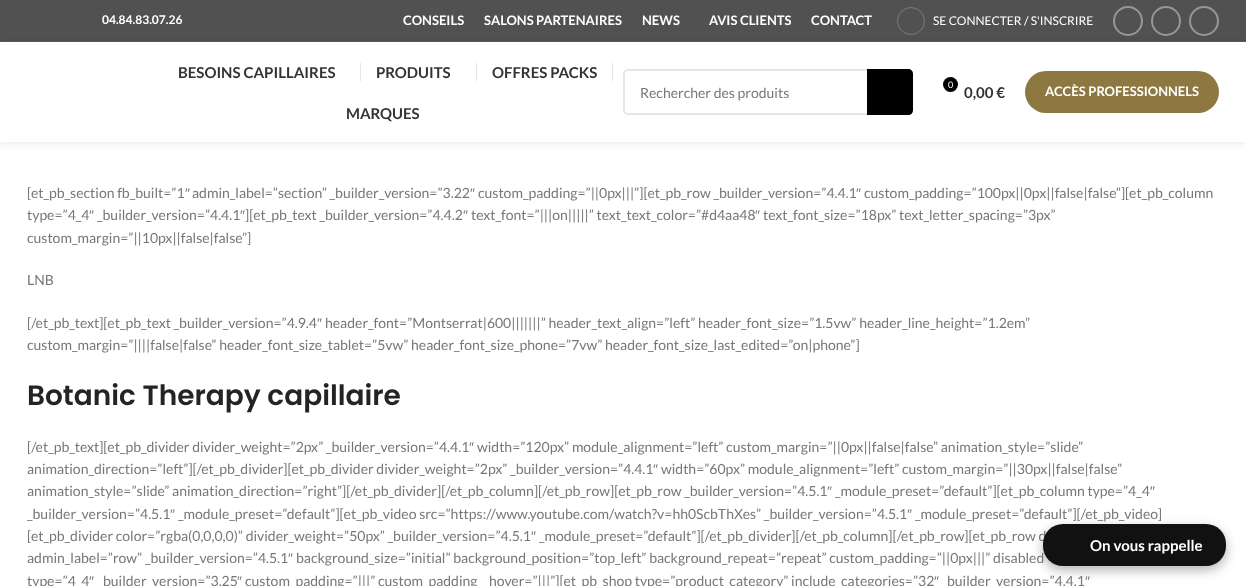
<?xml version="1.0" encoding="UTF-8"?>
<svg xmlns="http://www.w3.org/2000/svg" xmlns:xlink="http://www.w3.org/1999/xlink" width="1246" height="586">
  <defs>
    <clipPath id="clip1"><path d="M 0 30 h 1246 v 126 h -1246 z m 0 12 h 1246 v 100 h -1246 z" clip-rule="evenodd" /></clipPath>
  </defs>
  <rect width="100%" height="100%" fill="#ffffff" />
  <rect width="1246" height="41" fill="#515151" />
  <rect y="41" width="1246" height="1" fill="#5b5b5b" />
  <g clip-path="url(#clip1)">
    <rect y="43" width="1246" height="100" fill="#000000" fill-opacity="0.1" filter="blur(4px)" />
  </g>
  <circle cx="911" cy="21" r="13.5" fill="none" stroke="#7c7c7c" />
  <circle cx="1128" cy="21" r="14" fill="none" stroke="#979797" stroke-width="2" />
  <circle cx="1166" cy="21" r="14" fill="none" stroke="#979797" stroke-width="2" />
  <circle cx="1204" cy="21" r="14" fill="none" stroke="#979797" stroke-width="2" />
  <rect x="360" y="63" width="1" height="18" fill="#e4e4e4" />
  <rect x="476" y="63" width="1" height="18" fill="#e4e4e4" />
  <rect x="612" y="63" width="1" height="18" fill="#e4e4e4" />
  <rect x="624" y="70" width="288" height="44" rx="4" fill="none" stroke="#e6e6e6" stroke-width="2" />
  <path d="M 867 69 h 41 c 3 0 5 2 5 5 v 36 c 0 3 -2 5 -5 5 h -41 z" fill="#000000" />
  <circle cx="950.5" cy="84.5" r="7.5" fill="#000000" />
  <rect x="1025" y="71" width="194" height="42" rx="21" fill="#8d7841" />
  <rect x="1043" y="528" width="183" height="42" rx="20" fill="#000000" fill-opacity="0.3" filter="blur(6px)" />
  <text x="102" y="24" style="font-family: Lato; font-size: 12px; font-weight: bold; fill: #ffffff">04.84.83.07.26</text>
  <text x="403" y="25" style="font-family: Lato; font-size: 13px; font-weight: bold; fill: #ffffff">CONSEILS</text>
  <text x="484" y="25" style="font-family: Lato; font-size: 13px; font-weight: bold; fill: #ffffff">SALONS PARTENAIRES</text>
  <text x="642" y="25" style="font-family: Lato; font-size: 13px; font-weight: bold; fill: #ffffff">NEWS</text>
  <text x="709" y="25" style="font-family: Lato; font-size: 13px; font-weight: bold; fill: #ffffff">AVIS CLIENTS</text>
  <text x="811" y="25" style="font-family: Lato; font-size: 13px; font-weight: bold; fill: #ffffff">CONTACT</text>
  <text x="933" y="25" style="font-family: Lato; font-size: 12px; fill: #ffffff">SE CONNECTER / S'INSCRIRE</text>
  <text x="178" y="78" style="font-family: Lato; font-size: 15px; font-weight: bold; fill: #333333">BESOINS CAPILLAIRES</text>
  <text x="376" y="78" style="font-family: Lato; font-size: 15px; font-weight: bold; fill: #333333">PRODUITS</text>
  <text x="492" y="78" style="font-family: Lato; font-size: 15px; font-weight: bold; fill: #333333">OFFRES PACKS</text>
  <text x="346" y="119" style="font-family: Lato; font-size: 15px; font-weight: bold; fill: #333333">MARQUES</text>
  <text x="640" y="98" style="font-family: Lato; font-size: 14px; fill: #777777">Rechercher des produits</text>
  <text x="948" y="88" style="font-family: Lato; font-size: 9px; fill: #ffffff">0</text>
  <text x="964" y="98" style="font-family: Lato; font-size: 15px; font-weight: bold; fill: #333333">0,00 €</text>
  <text x="1045" y="96" style="font-family: Lato; font-size: 13px; font-weight: bold; fill: #ffffff">ACCÈS PROFESSIONNELS</text>
  <text x="27" y="198" style="font-family: Lato; font-size: 14px; fill: #777777">[et_pb_section fb_built=”1</text>
  <text x="185" y="198" style="font-family: Liberation Sans; font-size: 14px; fill: #777777">″</text>
  <text x="192" y="198" style="font-family: Lato; font-size: 14px; fill: #777777">admin_label=”section” _builder_version=”3.22</text>
  <text x="470" y="198" style="font-family: Liberation Sans; font-size: 14px; fill: #777777">″</text>
  <text x="478" y="198" style="font-family: Lato; font-size: 14px; fill: #777777">custom_padding=”||0px|||”][et_pb_row _builder_version=”4.4.1</text>
  <text x="856" y="198" style="font-family: Liberation Sans; font-size: 14px; fill: #777777">″</text>
  <text x="864" y="198" style="font-family: Lato; font-size: 14px; fill: #777777">custom_padding=”100px||0px||false|false”][et_pb_column</text>
  <text x="27" y="220" style="font-family: Lato; font-size: 14px; fill: #777777">type=”4_4</text>
  <text x="89" y="220" style="font-family: Liberation Sans; font-size: 14px; fill: #777777">″</text>
  <text x="97" y="220" style="font-family: Lato; font-size: 14px; fill: #777777">_builder_version=”4.4.1</text>
  <text x="240" y="220" style="font-family: Liberation Sans; font-size: 14px; fill: #777777">″</text>
  <text x="245" y="220" style="font-family: Lato; font-size: 14px; fill: #777777">][et_pb_text _builder_version=”4.4.2</text>
  <text x="463" y="220" style="font-family: Liberation Sans; font-size: 14px; fill: #777777">″</text>
  <text x="471" y="220" style="font-family: Lato; font-size: 14px; fill: #777777">text_font=”|||on|||||” text_text_color=”#d4aa48</text>
  <text x="755" y="220" style="font-family: Liberation Sans; font-size: 14px; fill: #777777">″</text>
  <text x="763" y="220" style="font-family: Lato; font-size: 14px; fill: #777777">text_font_size=”18px” text_letter_spacing=”3px”</text>
  <text x="27" y="243" style="font-family: Lato; font-size: 14px; fill: #777777">custom_margin=”||10px||false|false”]</text>
  <text x="27" y="285" style="font-family: Lato; font-size: 14px; fill: #777777">LNB</text>
  <text x="27" y="328" style="font-family: Lato; font-size: 14px; fill: #777777">[/et_pb_text][et_pb_text _builder_version=”4.9.4</text>
  <text x="317" y="328" style="font-family: Liberation Sans; font-size: 14px; fill: #777777">″</text>
  <text x="325" y="328" style="font-family: Lato; font-size: 14px; fill: #777777">header_font=”Montserrat|600|||||||” header_text_align=”left” header_font_size=”1.5vw” header_line_height=”1.2em”</text>
  <text x="27" y="350" style="font-family: Lato; font-size: 14px; fill: #777777">custom_margin=”||||false|false” header_font_size_tablet=”5vw” header_font_size_phone=”7vw” header_font_size_last_edited=”on|phone”]</text>
  <text x="27" y="405" style="font-family: Poppins; font-size: 28px; font-weight: 600; fill: #242424">Botanic Therapy capillaire</text>
  <text x="27" y="452" style="font-family: Lato; font-size: 14px; fill: #777777">[/et_pb_text][et_pb_divider divider_weight=”2px” _builder_version=”4.4.1</text>
  <text x="469" y="452" style="font-family: Liberation Sans; font-size: 14px; fill: #777777">″</text>
  <text x="477" y="452" style="font-family: Lato; font-size: 14px; fill: #777777">width=”120px” module_alignment=”left” custom_margin=”||0px||false|false” animation_style=”slide”</text>
  <text x="27" y="474" style="font-family: Lato; font-size: 14px; fill: #777777">animation_direction=”left”][/et_pb_divider][et_pb_divider divider_weight=”2px” _builder_version=”4.4.1</text>
  <text x="653" y="474" style="font-family: Liberation Sans; font-size: 14px; fill: #777777">″</text>
  <text x="661" y="474" style="font-family: Lato; font-size: 14px; fill: #777777">width=”60px” module_alignment=”left” custom_margin=”||30px||false|false”</text>
  <text x="27" y="496" style="font-family: Lato; font-size: 14px; fill: #777777">animation_style=”slide” animation_direction=”right”][/et_pb_divider][/et_pb_column][/et_pb_row][et_pb_row _builder_version=”4.5.1</text>
  <text x="827" y="496" style="font-family: Liberation Sans; font-size: 14px; fill: #777777">″</text>
  <text x="835" y="496" style="font-family: Lato; font-size: 14px; fill: #777777">_module_preset=”default”][et_pb_column type=”4_4</text>
  <text x="1150" y="496" style="font-family: Liberation Sans; font-size: 14px; fill: #777777">″</text>
  <text x="27" y="519" style="font-family: Lato; font-size: 14px; fill: #777777">_builder_version=”4.5.1</text>
  <text x="170" y="519" style="font-family: Liberation Sans; font-size: 14px; fill: #777777">″</text>
  <text x="178" y="519" style="font-family: Lato; font-size: 14px; fill: #777777">_module_preset=”default”][et_pb_video src=”https://www.youtube.com/watch?v=hh0ScbThXes” _builder_version=”4.5.1</text>
  <text x="907" y="519" style="font-family: Liberation Sans; font-size: 14px; fill: #777777">″</text>
  <text x="915" y="519" style="font-family: Lato; font-size: 14px; fill: #777777">_module_preset=”default”][/et_pb_video]</text>
  <text x="27" y="541" style="font-family: Lato; font-size: 14px; fill: #777777">[et_pb_divider color=”rgba(0,0,0,0)” divider_weight=”50px” _builder_version=”4.5.1</text>
  <text x="531" y="541" style="font-family: Liberation Sans; font-size: 14px; fill: #777777">″</text>
  <text x="539" y="541" style="font-family: Lato; font-size: 14px; fill: #777777">_module_preset=”default”][/et_pb_divider][/et_pb_column][/et_pb_row][et_pb_row d</text>
  <text x="27" y="563" style="font-family: Lato; font-size: 14px; fill: #777777">admin_label=”row” _builder_version=”4.5.1</text>
  <text x="288" y="563" style="font-family: Liberation Sans; font-size: 14px; fill: #777777">″</text>
  <text x="296" y="563" style="font-family: Lato; font-size: 14px; fill: #777777">background_size=”initial” background_position=”top_left” background_repeat=”repeat” custom_padding=”||0px|||” disabled</text>
  <text x="27" y="586" style="font-family: Lato; font-size: 14px; fill: #777777">type=”4_4</text>
  <text x="89" y="586" style="font-family: Liberation Sans; font-size: 14px; fill: #777777">″</text>
  <text x="103" y="586" style="font-family: Lato; font-size: 14px; fill: #777777">builder_version=”3.25</text>
  <text x="237" y="586" style="font-family: Liberation Sans; font-size: 14px; fill: #777777">″</text>
  <text x="245" y="586" style="font-family: Lato; font-size: 14px; fill: #777777">custom_padding=”|||” custom_padding</text>
  <text x="489" y="586" style="font-family: Lato; font-size: 14px; fill: #777777">hover=”|||”][et_pb_shop type=”product_category” include_categories=”32</text>
  <text x="934" y="586" style="font-family: Liberation Sans; font-size: 14px; fill: #777777">″</text>
  <text x="947" y="586" style="font-family: Lato; font-size: 14px; fill: #777777">builder_version=”4.4.1</text>
  <text x="1085" y="586" style="font-family: Liberation Sans; font-size: 14px; fill: #777777">″</text>
  <rect x="1043" y="524" width="183" height="42" rx="20" fill="#111111" />
  <text x="1090" y="551" style="font-family: Lato; font-size: 15px; font-weight: bold; fill: #ffffff">On vous rappelle</text>
</svg>
